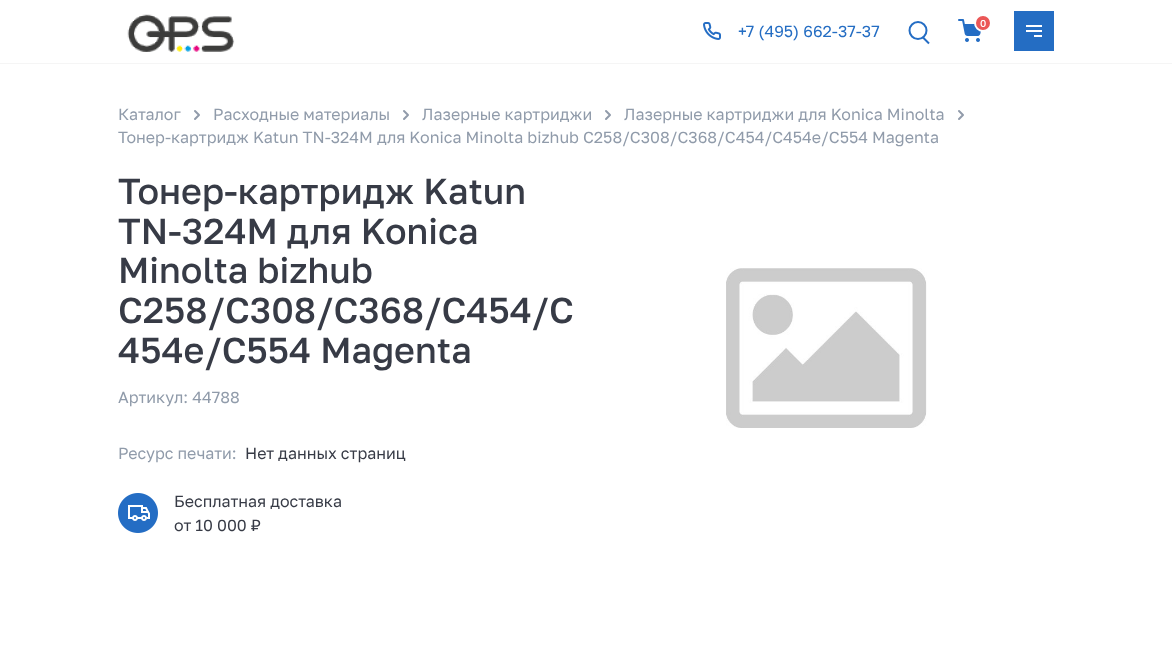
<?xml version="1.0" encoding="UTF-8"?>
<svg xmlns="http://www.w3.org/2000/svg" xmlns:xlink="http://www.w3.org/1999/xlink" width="1172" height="645">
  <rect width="100%" height="100%" fill="#ffffff" />
  <rect y="63" width="1172" height="1" fill="#f5f5f5" />
  <image x="127" y="14" width="108" height="38" xlink:href="image1.png" />
  <image x="703" y="22" width="18" height="18" xlink:href="image2.png" />
  <circle cx="918" cy="30.5" r="8.5" fill="none" stroke="#246dc4" stroke-width="2" />
  <path d="M 923 37.5 l 6 6" fill="none" stroke="#246dc4" stroke-width="2" />
  <image x="958" y="19" width="23" height="23" xlink:href="image3.png" />
  <circle cx="983" cy="23" r="8" fill="#eb5757" stroke="#ffffff" stroke-width="2" />
  <rect x="1014" y="11" width="40" height="40" fill="#246dc3" />
  <rect x="1026" y="25" width="16" height="2" fill="#ffffff" />
  <rect x="1026" y="30" width="16" height="2" fill="#ffffff" />
  <rect x="1034" y="35" width="8" height="2" fill="#ffffff" />
  <path d="M 195 119 l 4 -4 l -4 -4" fill="none" stroke="#919baa" stroke-width="2" stroke-linecap="round" stroke-linejoin="round" />
  <path d="M 404 119 l 4 -4 l -4 -4" fill="none" stroke="#919baa" stroke-width="2" stroke-linecap="round" stroke-linejoin="round" />
  <path d="M 606 119 l 4 -4 l -4 -4" fill="none" stroke="#919baa" stroke-width="2" stroke-linecap="round" stroke-linejoin="round" />
  <path d="M 959 119 l 4 -4 l -4 -4" fill="none" stroke="#919baa" stroke-width="2" stroke-linecap="round" stroke-linejoin="round" />
  <image x="118" y="493" width="40" height="40" xlink:href="image4.png" />
  <image x="726" y="268" width="201" height="160" xlink:href="image5.png" />
  <text x="738" y="37" style="font-family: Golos; font-size: 16px; fill: #246dc3">+7 (495) 662-37-37</text>
  <text x="980" y="27" style="font-family: Golos; font-size: 10px; font-weight: 500; fill: #ffffff">0</text>
  <text x="118" y="120" style="font-family: Golos; font-size: 16px; fill: #909baa">Каталог</text>
  <text x="213" y="120" style="font-family: Golos; font-size: 16px; fill: #909baa">Расходные материалы</text>
  <text x="422" y="120" style="font-family: Golos; font-size: 16px; fill: #909baa">Лазерные картриджи</text>
  <text x="624" y="120" style="font-family: Golos; font-size: 16px; fill: #909baa">Лазерные картриджи для Konica Minolta</text>
  <text x="118" y="143" style="font-family: Golos; font-size: 16px; fill: #909baa">Тонер-картридж Katun TN-324M для Konica Minolta bizhub C258/C308/C368/C454/C454e/C554 Magenta</text>
  <text x="118" y="204" style="font-family: Golos; font-size: 36px; font-weight: 500; fill: #373b46">Тонер-картридж Katun</text>
  <text x="118" y="244" style="font-family: Golos; font-size: 36px; font-weight: 500; fill: #373b46">TN-324M для Konica</text>
  <text x="118" y="283" style="font-family: Golos; font-size: 36px; font-weight: 500; fill: #373b46">Minolta bizhub</text>
  <text x="118" y="323" style="font-family: Golos; font-size: 36px; font-weight: 500; fill: #373b46">C258/C308/C368/C454/C</text>
  <text x="118" y="363" style="font-family: Golos; font-size: 36px; font-weight: 500; fill: #373b46">454e/C554 Magenta</text>
  <text x="118" y="403" style="font-family: Golos; font-size: 16px; fill: #909baa">Артикул: 44788</text>
  <text x="118" y="459" style="font-family: Golos; font-size: 16px; fill: #909baa">Ресурс печати:</text>
  <text x="245" y="459" style="font-family: Golos; font-size: 16px; fill: #373b46">Нет данных страниц</text>
  <text x="174" y="507" style="font-family: Golos; font-size: 16px; fill: #373b46">Бесплатная доставка</text>
  <text x="174" y="531" style="font-family: Golos; font-size: 16px; fill: #373b46">от 10 000 ₽</text>
</svg>
